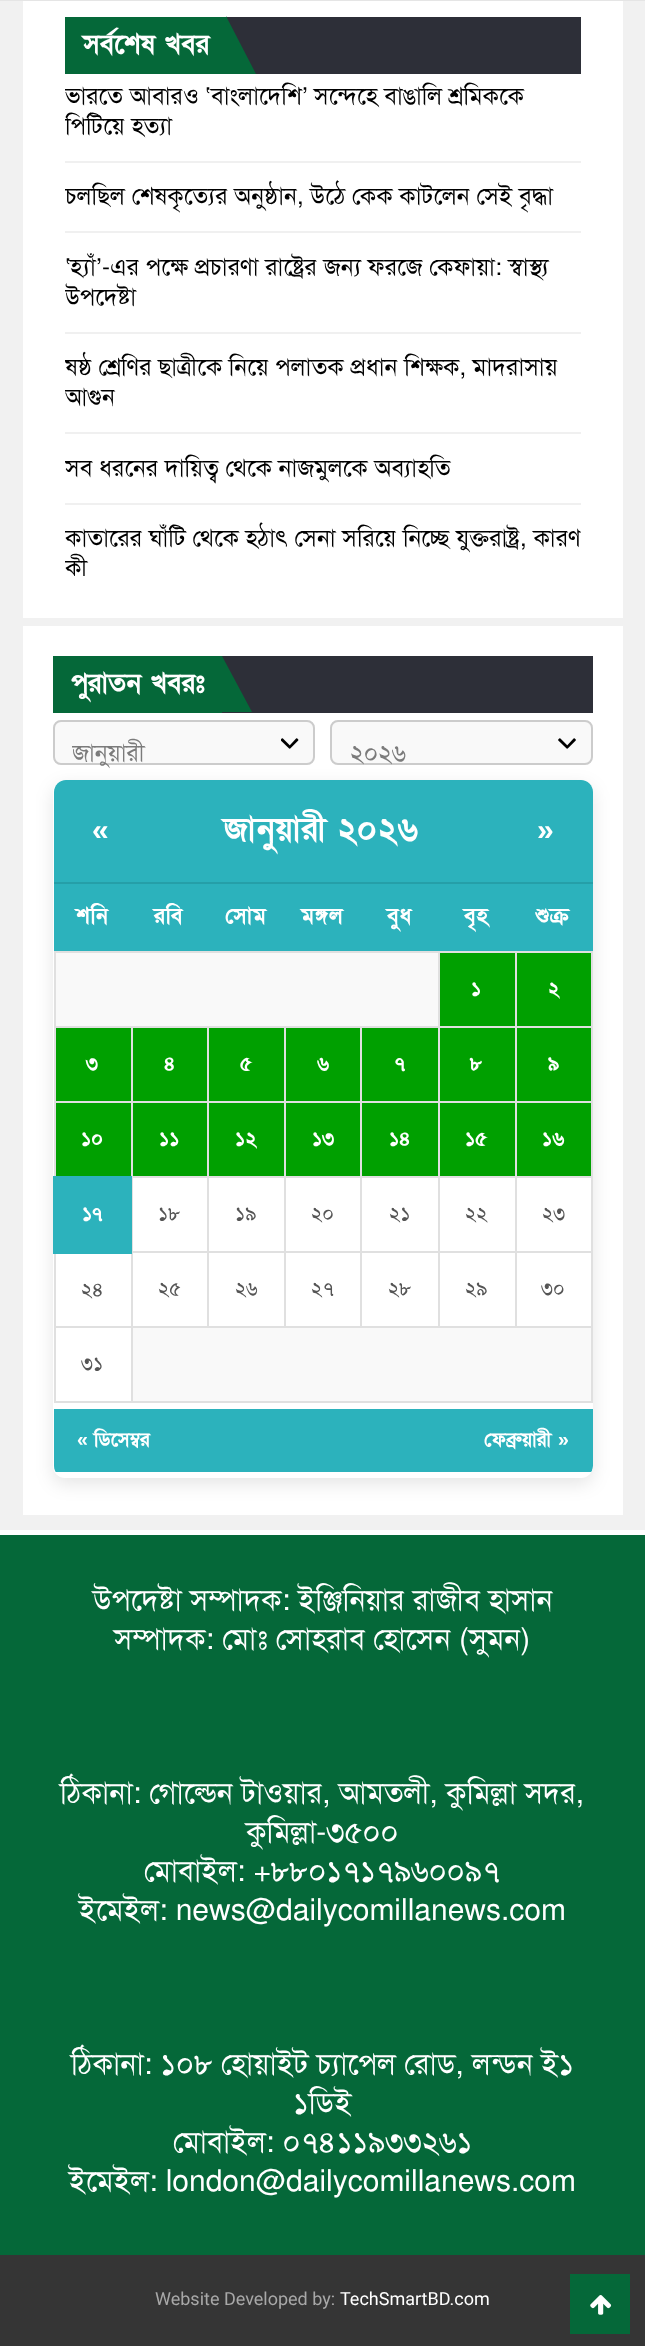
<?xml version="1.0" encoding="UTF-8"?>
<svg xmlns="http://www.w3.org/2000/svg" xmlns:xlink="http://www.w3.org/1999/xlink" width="645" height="2346">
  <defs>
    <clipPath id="clip1"><path d="M 54 1403 h 231 v 75 h -219 c -6.5 0 -12 -5.5 -12 -12 z" /></clipPath>
    <clipPath id="clip2"><rect x="53" y="780" width="540" height="698" rx="12" /></clipPath>
    <clipPath id="clip3"><path d="M 285 1403 h 308 v 63 c 0 6.5 -5.5 12 -12 12 h -296 z" /></clipPath>
    <clipPath id="clip4"><rect x="65" y="81" width="516" height="495" /></clipPath>
    <clipPath id="clip5"><rect x="72" y="734" width="197" height="40" /></clipPath>
  </defs>
  <rect width="100%" height="100%" fill="#f1f1f1" />
  <rect width="645" height="1" fill="#e5e5e5" />
  <rect x="23" y="1" width="600" height="617" fill="#ffffff" />
  <rect x="227" y="17" width="354" height="57" fill="#2d2f38" />
  <rect x="65" y="17" width="162" height="57" fill="#056839" />
  <path d="M 256 74 h -30 v -58 z" fill="#056839" />
  <rect x="65" y="161" width="516" height="2" fill="#f0f0f0" />
  <rect x="65" y="231" width="516" height="2" fill="#f0f0f0" />
  <rect x="65" y="332" width="516" height="2" fill="#f0f0f0" />
  <rect x="65" y="432" width="516" height="2" fill="#f0f0f0" />
  <rect x="65" y="503" width="516" height="2" fill="#f0f0f0" />
  <rect x="23" y="626" width="600" height="889" fill="#ffffff" />
  <rect x="222" y="656" width="371" height="57" fill="#2d2f38" />
  <rect x="53" y="656" width="169" height="57" fill="#056839" />
  <path d="M 252 712 h -30 v -56 z" fill="#056839" />
  <rect x="53" y="720" width="262" height="45" rx="8" fill="#f9f9f9" />
  <image x="281" y="738" width="18" height="11" xlink:href="image1.png" />
  <rect x="54" y="721" width="260" height="43" rx="7" fill="none" stroke="#cccccc" stroke-width="2" />
  <rect x="330" y="720" width="263" height="45" rx="8" fill="#f9f9f9" />
  <image x="558" y="738" width="18" height="11" xlink:href="image2.png" />
  <rect x="331" y="721" width="261" height="43" rx="7" fill="none" stroke="#cccccc" stroke-width="2" />
  <rect x="53" y="786" width="540" height="698" rx="12" fill="#000000" fill-opacity="0.1" filter="blur(9px)" />
  <rect x="53" y="780" width="540" height="698" rx="12" fill="#ffffff" />
  <path d="M 66 780 h 515 c 6.5 0 12 5.5 12 12 v 90 h -539 v -90 c 0 -6.5 5.5 -12 12 -12 z" fill="#2cb2bc" />
  <rect x="54" y="882" width="539" height="2" fill="#259fa8" />
  <rect x="54" y="884" width="539" height="67" fill="#2cb2bc" />
  <rect x="56" y="953" width="382" height="73" fill="#f9f9f9" />
  <rect x="515" y="951" width="78" height="2" fill="#e0e0e0" />
  <rect x="515" y="1026" width="78" height="2" fill="#e0e0e0" />
  <rect x="515" y="1101" width="78" height="2" fill="#e0e0e0" />
  <rect x="515" y="1176" width="78" height="2" fill="#e0e0e0" />
  <rect x="515" y="1251" width="78" height="2" fill="#e0e0e0" />
  <rect x="131" y="1326" width="462" height="2" fill="#e0e0e0" />
  <rect x="515" y="1251" width="2" height="77" fill="#e0e0e0" />
  <rect x="438" y="1251" width="78" height="2" fill="#e0e0e0" />
  <rect x="515" y="1176" width="2" height="77" fill="#e0e0e0" />
  <rect x="438" y="1176" width="78" height="2" fill="#e0e0e0" />
  <rect x="515" y="1101" width="2" height="77" fill="#e0e0e0" />
  <rect x="438" y="1101" width="78" height="2" fill="#e0e0e0" />
  <rect x="515" y="1026" width="2" height="77" fill="#e0e0e0" />
  <rect x="438" y="1026" width="78" height="2" fill="#e0e0e0" />
  <rect x="515" y="951" width="2" height="77" fill="#e0e0e0" />
  <rect x="438" y="951" width="78" height="2" fill="#e0e0e0" />
  <rect x="438" y="1251" width="2" height="77" fill="#e0e0e0" />
  <rect x="360" y="1251" width="80" height="2" fill="#e0e0e0" />
  <rect x="438" y="1176" width="2" height="77" fill="#e0e0e0" />
  <rect x="360" y="1176" width="80" height="2" fill="#e0e0e0" />
  <rect x="438" y="1101" width="2" height="77" fill="#e0e0e0" />
  <rect x="360" y="1101" width="80" height="2" fill="#e0e0e0" />
  <rect x="438" y="1026" width="2" height="77" fill="#e0e0e0" />
  <rect x="360" y="1026" width="80" height="2" fill="#e0e0e0" />
  <rect x="438" y="951" width="2" height="77" fill="#e0e0e0" />
  <rect x="54" y="951" width="386" height="2" fill="#e0e0e0" />
  <rect x="360" y="1251" width="2" height="77" fill="#e0e0e0" />
  <rect x="284" y="1251" width="78" height="2" fill="#e0e0e0" />
  <rect x="360" y="1176" width="2" height="77" fill="#e0e0e0" />
  <rect x="284" y="1176" width="78" height="2" fill="#e0e0e0" />
  <rect x="360" y="1101" width="2" height="77" fill="#e0e0e0" />
  <rect x="284" y="1101" width="78" height="2" fill="#e0e0e0" />
  <rect x="360" y="1026" width="2" height="77" fill="#e0e0e0" />
  <rect x="284" y="1026" width="78" height="2" fill="#e0e0e0" />
  <rect x="284" y="1251" width="2" height="77" fill="#e0e0e0" />
  <rect x="207" y="1251" width="78" height="2" fill="#e0e0e0" />
  <rect x="284" y="1176" width="2" height="77" fill="#e0e0e0" />
  <rect x="207" y="1176" width="78" height="2" fill="#e0e0e0" />
  <rect x="284" y="1101" width="2" height="77" fill="#e0e0e0" />
  <rect x="207" y="1101" width="78" height="2" fill="#e0e0e0" />
  <rect x="284" y="1026" width="2" height="77" fill="#e0e0e0" />
  <rect x="207" y="1026" width="78" height="2" fill="#e0e0e0" />
  <rect x="207" y="1251" width="2" height="77" fill="#e0e0e0" />
  <rect x="131" y="1251" width="78" height="2" fill="#e0e0e0" />
  <rect x="207" y="1176" width="2" height="77" fill="#e0e0e0" />
  <rect x="131" y="1176" width="78" height="2" fill="#e0e0e0" />
  <rect x="207" y="1101" width="2" height="77" fill="#e0e0e0" />
  <rect x="131" y="1101" width="78" height="2" fill="#e0e0e0" />
  <rect x="207" y="1026" width="2" height="77" fill="#e0e0e0" />
  <rect x="131" y="1026" width="78" height="2" fill="#e0e0e0" />
  <rect x="591" y="1326" width="2" height="77" fill="#e0e0e0" />
  <rect x="131" y="1401" width="462" height="2" fill="#e0e0e0" />
  <rect x="131" y="1326" width="2" height="77" fill="#e0e0e0" />
  <rect x="54" y="1326" width="78" height="2" fill="#e0e0e0" />
  <rect x="131" y="1251" width="2" height="77" fill="#e0e0e0" />
  <rect x="132" y="1176" width="1" height="77" fill="#e0e0e0" />
  <rect x="131" y="1101" width="2" height="77" fill="#e0e0e0" />
  <rect x="54" y="1101" width="78" height="2" fill="#e0e0e0" />
  <rect x="131" y="1026" width="2" height="77" fill="#e0e0e0" />
  <rect x="54" y="1026" width="78" height="2" fill="#e0e0e0" />
  <rect x="54" y="1101" width="2" height="77" fill="#e0e0e0" />
  <rect x="54" y="1026" width="2" height="77" fill="#e0e0e0" />
  <rect x="54" y="951" width="2" height="77" fill="#e0e0e0" />
  <rect x="440" y="953" width="75" height="73" fill="#00a000" />
  <rect x="591" y="1251" width="2" height="77" fill="#e0e0e0" />
  <rect x="591" y="1176" width="2" height="77" fill="#e0e0e0" />
  <rect x="591" y="1101" width="2" height="77" fill="#e0e0e0" />
  <rect x="591" y="1026" width="2" height="77" fill="#e0e0e0" />
  <rect x="591" y="951" width="2" height="77" fill="#e0e0e0" />
  <rect x="517" y="953" width="74" height="73" fill="#00a000" />
  <rect x="56" y="1028" width="75" height="73" fill="#00a000" />
  <rect x="133" y="1028" width="74" height="73" fill="#00a000" />
  <rect x="209" y="1028" width="75" height="73" fill="#00a000" />
  <rect x="286" y="1028" width="74" height="73" fill="#00a000" />
  <rect x="362" y="1028" width="76" height="73" fill="#00a000" />
  <rect x="440" y="1028" width="75" height="73" fill="#00a000" />
  <rect x="517" y="1028" width="74" height="73" fill="#00a000" />
  <rect x="56" y="1103" width="75" height="73" fill="#00a000" />
  <rect x="133" y="1103" width="74" height="73" fill="#00a000" />
  <rect x="209" y="1103" width="75" height="73" fill="#00a000" />
  <rect x="286" y="1103" width="74" height="73" fill="#00a000" />
  <rect x="362" y="1103" width="76" height="73" fill="#00a000" />
  <rect x="440" y="1103" width="75" height="73" fill="#00a000" />
  <rect x="517" y="1103" width="74" height="73" fill="#00a000" />
  <rect x="53" y="1176" width="79" height="3" fill="#2cb2bc" />
  <rect x="129" y="1176" width="3" height="78" fill="#2cb2bc" />
  <rect x="54" y="1401" width="78" height="2" fill="#e0e0e0" />
  <rect x="54" y="1251" width="2" height="152" fill="#e0e0e0" />
  <rect x="53" y="1251" width="79" height="3" fill="#2cb2bc" />
  <rect x="53" y="1176" width="3" height="78" fill="#2cb2bc" />
  <rect x="56" y="1179" width="73" height="72" fill="#2cb2bc" />
  <rect x="133" y="1328" width="458" height="73" fill="#f9f9f9" />
  <g clip-path="url(#clip1)">
    <rect x="54" y="1409" width="231" height="63" fill="#2cb2bc" />
  </g>
  <g clip-path="url(#clip2)">
    <g clip-path="url(#clip3)">
      <rect x="285" y="1409" width="308" height="63" fill="#2cb2bc" />
    </g>
  </g>
  <rect y="1530" width="645" height="5" fill="#ffffff" />
  <rect y="1535" width="645" height="720" fill="#056839" />
  <rect y="2255" width="645" height="91" fill="#353535" />
  <rect x="570" y="2274" width="60" height="60" fill="#056839" />
  <image x="590" y="2295" width="22" height="20" xlink:href="image3.png" />
  <text x="83" y="53" style="font-family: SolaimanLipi; font-size: 27px; font-weight: bold; fill: #ffffff">সর্বশেষ খবর</text>
  <g clip-path="url(#clip4)">
    <text x="65" y="104" style="font-family: SolaimanLipi; font-size: 24px; fill: #000000">ভারতে আবারও</text>
  </g>
  <text x="314" y="104" style="font-family: SolaimanLipi; font-size: 24px; fill: #000000">সন্দেহে বাঙালি শ্রমিককে</text>
  <text x="205" y="104" style="font-family: 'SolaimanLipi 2'; font-size: 24px; fill: #000000">‘</text>
  <text x="211" y="104" style="font-family: SolaimanLipi; font-size: 24px; fill: #000000">বাংলাদেশি</text>
  <text x="302" y="104" style="font-family: 'SolaimanLipi 2'; font-size: 24px; fill: #000000">’</text>
  <g clip-path="url(#clip4)">
    <text x="65" y="134" style="font-family: SolaimanLipi; font-size: 24px; fill: #000000">পিটিয়ে হত্যা</text>
    <text x="65" y="204" style="font-family: SolaimanLipi; font-size: 24px; fill: #000000">চলছিল শেষকৃত্যের অনুষ্ঠান, উঠে কেক কাটলেন সেই বৃদ্ধা</text>
  </g>
  <text x="102" y="275" style="font-family: SolaimanLipi; font-size: 24px; fill: #000000">-এর পক্ষে প্রচারণা রাষ্ট্রের জন্য ফরজে কেফায়া: স্বাস্থ্য</text>
  <text x="65" y="275" style="font-family: 'SolaimanLipi 2'; font-size: 24px; fill: #000000">‘</text>
  <g clip-path="url(#clip4)">
    <text x="70" y="275" style="font-family: SolaimanLipi; font-size: 24px; fill: #000000">হ্যাঁ</text>
  </g>
  <text x="96" y="275" style="font-family: 'SolaimanLipi 2'; font-size: 24px; fill: #000000">’</text>
  <g clip-path="url(#clip4)">
    <text x="65" y="305" style="font-family: SolaimanLipi; font-size: 24px; fill: #000000">উপদেষ্টা</text>
    <text x="65" y="375" style="font-family: SolaimanLipi; font-size: 24px; fill: #000000">ষষ্ঠ শ্রেণির ছাত্রীকে নিয়ে পলাতক প্রধান শিক্ষক, মাদরাসায়</text>
    <text x="65" y="405" style="font-family: SolaimanLipi; font-size: 24px; fill: #000000">আগুন</text>
    <text x="65" y="476" style="font-family: SolaimanLipi; font-size: 24px; fill: #000000">সব ধরনের দায়িত্ব থেকে নাজমুলকে অব্যাহতি</text>
    <text x="65" y="546" style="font-family: SolaimanLipi; font-size: 24px; fill: #000000">কাতারের ঘাঁটি থেকে হঠাৎ সেনা সরিয়ে নিচ্ছে যুক্তরাষ্ট্র, কারণ</text>
    <text x="65" y="576" style="font-family: SolaimanLipi; font-size: 24px; fill: #000000">কী</text>
  </g>
  <text x="71" y="692" style="font-family: SolaimanLipi; font-size: 27px; font-weight: bold; fill: #ffffff">পুরাতন খবরঃ</text>
  <g clip-path="url(#clip5)">
    <text x="72" y="761" style="font-family: SolaimanLipi; font-size: 24px; fill: #7b7b7b">জানুয়ারী</text>
  </g>
  <text x="350" y="761" style="font-family: SolaimanLipi; font-size: 24px; fill: #7b7b7b">২০২৬</text>
  <text x="92" y="840" style="font-family: Liberation Sans; font-size: 30px; font-weight: bold; letter-spacing: 0.75px; fill: #ffffff">«</text>
  <text x="224" y="840" word-spacing="-2" style="font-family: SolaimanLipi; font-size: 33px; font-weight: bold; letter-spacing: 0.75px; fill: #ffffff">জানুয়ারী ২০২৬</text>
  <text x="537" y="840" style="font-family: Liberation Sans; font-size: 30px; font-weight: bold; letter-spacing: 0.75px; fill: #ffffff">»</text>
  <text x="76" y="923" style="font-family: SolaimanLipi; font-size: 22px; font-weight: bold; letter-spacing: 0.75px; fill: #ffffff">শনি</text>
  <text x="154" y="923" style="font-family: SolaimanLipi; font-size: 22px; font-weight: bold; letter-spacing: 0.75px; fill: #ffffff">রবি</text>
  <text x="225" y="923" style="font-family: SolaimanLipi; font-size: 22px; font-weight: bold; letter-spacing: 0.75px; fill: #ffffff">সোম</text>
  <text x="301" y="923" style="font-family: SolaimanLipi; font-size: 22px; font-weight: bold; letter-spacing: 0.75px; fill: #ffffff">মঙ্গল</text>
  <text x="387" y="923" style="font-family: SolaimanLipi; font-size: 22px; font-weight: bold; letter-spacing: 0.75px; fill: #ffffff">বুধ</text>
  <text x="464" y="923" style="font-family: SolaimanLipi; font-size: 22px; font-weight: bold; letter-spacing: 0.75px; fill: #ffffff">বৃহ</text>
  <text x="535" y="923" style="font-family: SolaimanLipi; font-size: 22px; font-weight: bold; letter-spacing: 0.75px; fill: #ffffff">শুক্র</text>
  <text x="471" y="995" style="font-family: SolaimanLipi; font-size: 19.5px; font-weight: bold; fill: #ffffff">১</text>
  <text x="548" y="995" style="font-family: SolaimanLipi; font-size: 19.5px; font-weight: bold; fill: #ffffff">২</text>
  <text x="86" y="1070" style="font-family: SolaimanLipi; font-size: 19.5px; font-weight: bold; fill: #ffffff">৩</text>
  <text x="164" y="1070" style="font-family: SolaimanLipi; font-size: 19.5px; font-weight: bold; fill: #ffffff">৪</text>
  <text x="240" y="1070" style="font-family: SolaimanLipi; font-size: 19.5px; font-weight: bold; fill: #ffffff">৫</text>
  <text x="317" y="1070" style="font-family: SolaimanLipi; font-size: 19.5px; font-weight: bold; fill: #ffffff">৬</text>
  <text x="395" y="1070" style="font-family: SolaimanLipi; font-size: 19.5px; font-weight: bold; fill: #ffffff">৭</text>
  <text x="470" y="1070" style="font-family: SolaimanLipi; font-size: 19.5px; font-weight: bold; fill: #ffffff">৮</text>
  <text x="548" y="1070" style="font-family: SolaimanLipi; font-size: 19.5px; font-weight: bold; fill: #ffffff">৯</text>
  <text x="81" y="1145" style="font-family: SolaimanLipi; font-size: 19.5px; font-weight: bold; fill: #ffffff">১০</text>
  <text x="159" y="1145" style="font-family: SolaimanLipi; font-size: 19.5px; font-weight: bold; fill: #ffffff">১১</text>
  <text x="235" y="1145" style="font-family: SolaimanLipi; font-size: 19.5px; font-weight: bold; fill: #ffffff">১২</text>
  <text x="312" y="1145" style="font-family: SolaimanLipi; font-size: 19.5px; font-weight: bold; fill: #ffffff">১৩</text>
  <text x="389" y="1145" style="font-family: SolaimanLipi; font-size: 19.5px; font-weight: bold; fill: #ffffff">১৪</text>
  <text x="465" y="1145" style="font-family: SolaimanLipi; font-size: 19.5px; font-weight: bold; fill: #ffffff">১৫</text>
  <text x="542" y="1145" style="font-family: SolaimanLipi; font-size: 19.5px; font-weight: bold; fill: #ffffff">১৬</text>
  <text x="82" y="1220" style="font-family: SolaimanLipi; font-size: 19.5px; font-weight: bold; fill: #ffffff">১৭</text>
  <text x="158" y="1220" style="font-family: SolaimanLipi; font-size: 19.5px; fill: #555555">১৮</text>
  <text x="235" y="1220" style="font-family: SolaimanLipi; font-size: 19.5px; fill: #555555">১৯</text>
  <text x="311" y="1220" style="font-family: SolaimanLipi; font-size: 19.5px; fill: #555555">২০</text>
  <text x="389" y="1220" style="font-family: SolaimanLipi; font-size: 19.5px; fill: #555555">২১</text>
  <text x="465" y="1220" style="font-family: SolaimanLipi; font-size: 19.5px; fill: #555555">২২</text>
  <text x="542" y="1220" style="font-family: SolaimanLipi; font-size: 19.5px; fill: #555555">২৩</text>
  <text x="81" y="1296" style="font-family: SolaimanLipi; font-size: 19.5px; fill: #555555">২৪</text>
  <text x="158" y="1295" style="font-family: SolaimanLipi; font-size: 19.5px; fill: #555555">২৫</text>
  <text x="235" y="1295" style="font-family: SolaimanLipi; font-size: 19.5px; fill: #555555">২৬</text>
  <text x="311" y="1295" style="font-family: SolaimanLipi; font-size: 19.5px; fill: #555555">২৭</text>
  <text x="388" y="1295" style="font-family: SolaimanLipi; font-size: 19.5px; fill: #555555">২৮</text>
  <text x="465" y="1295" style="font-family: SolaimanLipi; font-size: 19.5px; fill: #555555">২৯</text>
  <text x="541" y="1295" style="font-family: SolaimanLipi; font-size: 19.5px; fill: #555555">৩০</text>
  <text x="81" y="1370" style="font-family: SolaimanLipi; font-size: 19.5px; fill: #555555">৩১</text>
  <text x="77" y="1446" style="font-family: Liberation Sans; font-size: 19.5px; font-weight: bold; fill: #ffffff">«</text>
  <text x="94" y="1446" style="font-family: SolaimanLipi; font-size: 19.5px; font-weight: bold; fill: #ffffff">ডিসেম্বর</text>
  <text x="484" y="1446" style="font-family: SolaimanLipi; font-size: 19.5px; font-weight: bold; fill: #ffffff">ফেব্রুয়ারী</text>
  <text x="558" y="1446" style="font-family: Liberation Sans; font-size: 19.5px; font-weight: bold; fill: #ffffff">»</text>
  <text x="93" y="1610" style="font-family: SolaimanLipi; font-size: 30px; fill: #ffffff">উপদেষ্টা সম্পাদক: ইঞ্জিনিয়ার রাজীব হাসান</text>
  <text x="114" y="1649" style="font-family: SolaimanLipi; font-size: 30px; fill: #ffffff">সম্পাদক: মোঃ সোহরাব হোসেন (সুমন)</text>
  <text x="60" y="1803" style="font-family: SolaimanLipi; font-size: 30px; fill: #ffffff">ঠিকানা: গোল্ডেন টাওয়ার, আমতলী, কুমিল্লা সদর,</text>
  <text x="246" y="1842" style="font-family: SolaimanLipi; font-size: 30px; fill: #ffffff">কুমিল্লা-৩৫০০</text>
  <text x="144" y="1881" style="font-family: SolaimanLipi; font-size: 30px; fill: #ffffff">মোবাইল: +৮৮০১৭১৭৯৬০০৯৭</text>
  <text x="79" y="1920" style="font-family: SolaimanLipi; font-size: 30px; fill: #ffffff">ইমেইল: news@dailycomillanews.com</text>
  <text x="71" y="2074" style="font-family: SolaimanLipi; font-size: 30px; fill: #ffffff">ঠিকানা: ১০৮ হোয়াইট চ্যাপেল রোড, লন্ডন ই১</text>
  <text x="293" y="2113" style="font-family: SolaimanLipi; font-size: 30px; fill: #ffffff">১ডিই</text>
  <text x="173" y="2152" style="font-family: SolaimanLipi; font-size: 30px; fill: #ffffff">মোবাইল: ০৭৪১১৯৩৩২৬১</text>
  <text x="69" y="2191" style="font-family: SolaimanLipi; font-size: 30px; fill: #ffffff">ইমেইল: london@dailycomillanews.com</text>
  <text x="155" y="2305" style="font-family: Roboto; font-size: 18px; fill: #a8a8a8">Website Developed by:</text>
  <text x="340" y="2305" style="font-family: Roboto; font-size: 18px; fill: #ffffff">TechSmartBD.com</text>
</svg>
